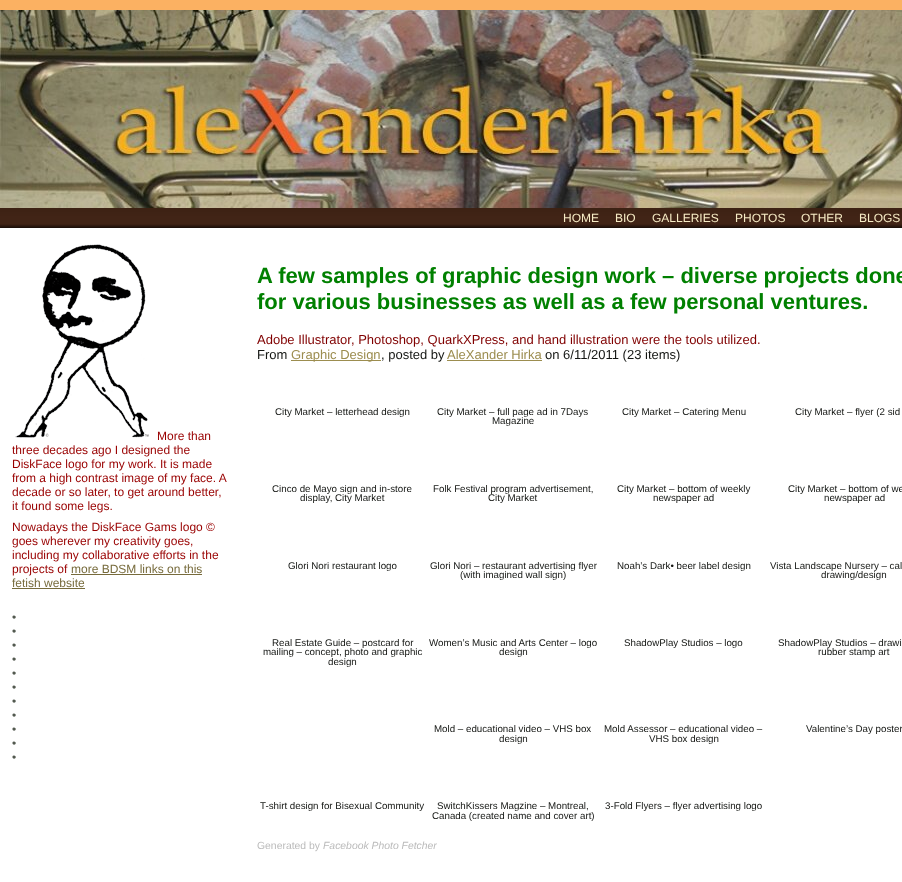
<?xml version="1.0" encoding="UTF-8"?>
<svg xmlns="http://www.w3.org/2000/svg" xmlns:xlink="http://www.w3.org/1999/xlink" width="902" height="882">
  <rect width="100%" height="100%" fill="#fbb162" />
  <image x="0" y="10" width="902" height="198" xlink:href="image1.png" />
  <image x="0" y="208" width="902" height="20" xlink:href="image2.png" />
  <rect y="228" width="902" height="654" fill="#ffffff" />
  <image x="15" y="244" width="134" height="194" xlink:href="image3.png" />
  <rect x="71" y="574" width="131" height="1" fill="#776b3c" />
  <rect x="12" y="588" width="73" height="1" fill="#776b3c" />
  <rect x="291" y="360" width="90" height="1" fill="#9c8d4f" />
  <rect x="447" y="360" width="95" height="1" fill="#9c8d4f" />
  <text x="563" y="222" style="font-family: Liberation Sans; font-size: 12px; fill: #f7ecc5">HOME</text>
  <text x="615" y="222" style="font-family: Liberation Sans; font-size: 12px; fill: #f7ecc5">BIO</text>
  <text x="652" y="222" style="font-family: Liberation Sans; font-size: 12px; fill: #f7ecc5">GALLERIES</text>
  <text x="735" y="222" style="font-family: Liberation Sans; font-size: 12px; fill: #f7ecc5">PHOTOS</text>
  <text x="801" y="222" style="font-family: Liberation Sans; font-size: 12px; fill: #f7ecc5">OTHER</text>
  <text x="859" y="222" style="font-family: Liberation Sans; font-size: 12px; fill: #f7ecc5">BLOGS</text>
  <text x="157" y="440" style="font-family: Liberation Sans; font-size: 12px; fill: #990000">More than</text>
  <text x="12" y="454" style="font-family: Liberation Sans; font-size: 12px; fill: #990000">three decades ago I designed the</text>
  <text x="12" y="468" style="font-family: Liberation Sans; font-size: 12px; fill: #990000">DiskFace logo for my work. It is made</text>
  <text x="12" y="482" style="font-family: Liberation Sans; font-size: 12px; fill: #990000">from a high contrast image of my face. A</text>
  <text x="12" y="496" style="font-family: Liberation Sans; font-size: 12px; fill: #990000">decade or so later, to get around better,</text>
  <text x="12" y="510" style="font-family: Liberation Sans; font-size: 12px; fill: #990000">it found some legs.</text>
  <text x="12" y="531" style="font-family: Liberation Sans; font-size: 12px; fill: #990000">Nowadays the DiskFace Gams logo ©</text>
  <text x="12" y="545" style="font-family: Liberation Sans; font-size: 12px; fill: #990000">goes wherever my creativity goes,</text>
  <text x="12" y="559" style="font-family: Liberation Sans; font-size: 12px; fill: #990000">including my collaborative efforts in the</text>
  <text x="12" y="573" style="font-family: Liberation Sans; font-size: 12px; fill: #990000">projects of</text>
  <text x="71" y="573" style="font-family: Liberation Sans; font-size: 12px; fill: #776b3c">more BDSM links on this</text>
  <text x="12" y="587" style="font-family: Liberation Sans; font-size: 12px; fill: #776b3c">fetish website</text>
  <text x="12" y="621" style="font-family: Liberation Sans; font-size: 12px; fill: #52594f">•</text>
  <text x="12" y="635" style="font-family: Liberation Sans; font-size: 12px; fill: #52594f">•</text>
  <text x="12" y="649" style="font-family: Liberation Sans; font-size: 12px; fill: #52594f">•</text>
  <text x="12" y="663" style="font-family: Liberation Sans; font-size: 12px; fill: #52594f">•</text>
  <text x="12" y="677" style="font-family: Liberation Sans; font-size: 12px; fill: #52594f">•</text>
  <text x="12" y="691" style="font-family: Liberation Sans; font-size: 12px; fill: #52594f">•</text>
  <text x="12" y="705" style="font-family: Liberation Sans; font-size: 12px; fill: #52594f">•</text>
  <text x="12" y="719" style="font-family: Liberation Sans; font-size: 12px; fill: #52594f">•</text>
  <text x="12" y="733" style="font-family: Liberation Sans; font-size: 12px; fill: #52594f">•</text>
  <text x="12" y="747" style="font-family: Liberation Sans; font-size: 12px; fill: #52594f">•</text>
  <text x="12" y="761" style="font-family: Liberation Sans; font-size: 12px; fill: #52594f">•</text>
  <text x="257" y="283" style="font-family: Liberation Sans; font-size: 22px; font-weight: bold; fill: #008000">A few samples of graphic design work – diverse projects done</text>
  <text x="257" y="309" style="font-family: Liberation Sans; font-size: 22px; font-weight: bold; fill: #008000">for various businesses as well as a few personal ventures.</text>
  <text x="257" y="344" style="font-family: Liberation Sans; font-size: 13px; fill: #800000">Adobe Illustrator, Photoshop, QuarkXPress, and hand illustration were the tools utilized.</text>
  <text x="257" y="359" style="font-family: Liberation Sans; font-size: 13px; fill: #141613">From</text>
  <text x="291" y="359" style="font-family: Liberation Sans; font-size: 13px; fill: #9c8d4f">Graphic Design</text>
  <text x="381" y="359" style="font-family: Liberation Sans; font-size: 13px; fill: #141613">, posted by</text>
  <text x="447" y="359" style="font-family: Liberation Sans; font-size: 13px; fill: #9c8d4f">AleXander Hirka</text>
  <text x="545" y="359" style="font-family: Liberation Sans; font-size: 13px; fill: #141613">on 6/11/2011 (23 items)</text>
  <text x="275" y="415" style="font-family: Liberation Sans; font-size: 9.75px; fill: #141613">City Market – letterhead design</text>
  <text x="437" y="415" style="font-family: Liberation Sans; font-size: 9.75px; fill: #141613">City Market – full page ad in 7Days</text>
  <text x="492" y="424" style="font-family: Liberation Sans; font-size: 9.75px; fill: #141613">Magazine</text>
  <text x="622" y="415" style="font-family: Liberation Sans; font-size: 9.75px; fill: #141613">City Market – Catering Menu</text>
  <text x="795" y="415" style="font-family: Liberation Sans; font-size: 9.75px; fill: #141613">City Market – flyer (2 sid</text>
  <text x="272" y="492" style="font-family: Liberation Sans; font-size: 9.75px; fill: #141613">Cinco de Mayo sign and in-store</text>
  <text x="300" y="501" style="font-family: Liberation Sans; font-size: 9.75px; fill: #141613">display, City Market</text>
  <text x="433" y="492" style="font-family: Liberation Sans; font-size: 9.75px; fill: #141613">Folk Festival program advertisement,</text>
  <text x="488" y="501" style="font-family: Liberation Sans; font-size: 9.75px; fill: #141613">City Market</text>
  <text x="617" y="492" style="font-family: Liberation Sans; font-size: 9.75px; fill: #141613">City Market – bottom of weekly</text>
  <text x="653" y="501" style="font-family: Liberation Sans; font-size: 9.75px; fill: #141613">newspaper ad</text>
  <text x="788" y="492" style="font-family: Liberation Sans; font-size: 9.75px; fill: #141613">City Market – bottom of we</text>
  <text x="824" y="501" style="font-family: Liberation Sans; font-size: 9.75px; fill: #141613">newspaper ad</text>
  <text x="288" y="569" style="font-family: Liberation Sans; font-size: 9.75px; fill: #141613">Glori Nori restaurant logo</text>
  <text x="430" y="569" style="font-family: Liberation Sans; font-size: 9.75px; fill: #141613">Glori Nori – restaurant advertising flyer</text>
  <text x="460" y="578" style="font-family: Liberation Sans; font-size: 9.75px; fill: #141613">(with imagined wall sign)</text>
  <text x="617" y="569" style="font-family: Liberation Sans; font-size: 9.75px; fill: #141613">Noah’s Dark• beer label design</text>
  <text x="770" y="569" style="font-family: Liberation Sans; font-size: 9.75px; fill: #141613">Vista Landscape Nursery – cal</text>
  <text x="821" y="578" style="font-family: Liberation Sans; font-size: 9.75px; fill: #141613">drawing/design</text>
  <text x="272" y="646" style="font-family: Liberation Sans; font-size: 9.75px; fill: #141613">Real Estate Guide – postcard for</text>
  <text x="263" y="655" style="font-family: Liberation Sans; font-size: 9.75px; fill: #141613">mailing – concept, photo and graphic</text>
  <text x="328" y="665" style="font-family: Liberation Sans; font-size: 9.75px; fill: #141613">design</text>
  <text x="429" y="646" style="font-family: Liberation Sans; font-size: 9.75px; fill: #141613">Women’s Music and Arts Center – logo</text>
  <text x="499" y="655" style="font-family: Liberation Sans; font-size: 9.75px; fill: #141613">design</text>
  <text x="624" y="646" style="font-family: Liberation Sans; font-size: 9.75px; fill: #141613">ShadowPlay Studios – logo</text>
  <text x="778" y="646" style="font-family: Liberation Sans; font-size: 9.75px; fill: #141613">ShadowPlay Studios – drawi</text>
  <text x="818" y="655" style="font-family: Liberation Sans; font-size: 9.75px; fill: #141613">rubber stamp art</text>
  <text x="434" y="732" style="font-family: Liberation Sans; font-size: 9.75px; fill: #141613">Mold – educational video – VHS box</text>
  <text x="499" y="742" style="font-family: Liberation Sans; font-size: 9.75px; fill: #141613">design</text>
  <text x="604" y="732" style="font-family: Liberation Sans; font-size: 9.75px; fill: #141613">Mold Assessor – educational video –</text>
  <text x="649" y="742" style="font-family: Liberation Sans; font-size: 9.75px; fill: #141613">VHS box design</text>
  <text x="806" y="732" style="font-family: Liberation Sans; font-size: 9.75px; fill: #141613">Valentine’s Day poster</text>
  <text x="260" y="809" style="font-family: Liberation Sans; font-size: 9.75px; fill: #141613">T-shirt design for Bisexual Community</text>
  <text x="437" y="809" style="font-family: Liberation Sans; font-size: 9.75px; fill: #141613">SwitchKissers Magzine – Montreal,</text>
  <text x="432" y="819" style="font-family: Liberation Sans; font-size: 9.75px; fill: #141613">Canada (created name and cover art)</text>
  <text x="605" y="809" style="font-family: Liberation Sans; font-size: 9.75px; fill: #141613">3-Fold Flyers – flyer advertising logo</text>
  <text x="257" y="849" style="font-family: Liberation Sans; font-size: 10.4px; fill: #bbbbbb">Generated by</text>
  <text x="323" y="849" style="font-family: Liberation Sans; font-size: 10.4px; font-style: italic; fill: #bbbbbb">Facebook Photo Fetcher</text>
</svg>
